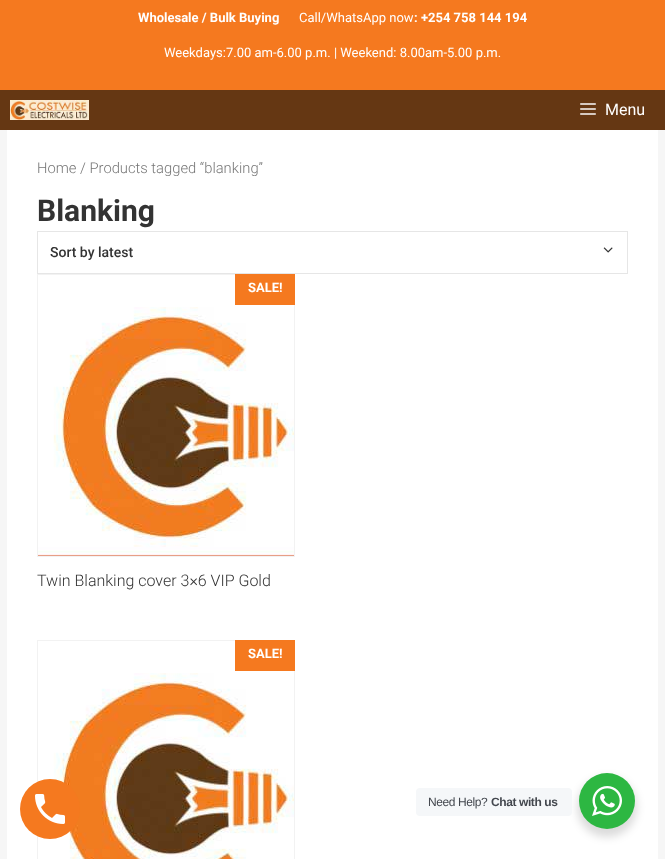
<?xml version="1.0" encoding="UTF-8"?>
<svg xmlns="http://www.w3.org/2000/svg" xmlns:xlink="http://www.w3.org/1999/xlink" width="665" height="859">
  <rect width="100%" height="100%" fill="#f6f6f6" />
  <rect width="665" height="90" fill="#f5791f" />
  <rect y="90" width="665" height="40" fill="#653713" />
  <image x="10" y="100" width="79" height="20" xlink:href="image1.png" />
  <image x="580" y="103" width="16" height="12" xlink:href="image2.png" />
  <rect x="7" y="130" width="651" height="729" fill="#ffffff" />
  <rect x="37.5" y="231.5" width="590" height="42" fill="none" stroke="#e6e6e6" />
  <image x="603" y="247" width="10" height="6" xlink:href="image3.png" />
  <rect x="37.5" y="274.5" width="257" height="282" fill="none" stroke="#f2f2f2" />
  <image x="38" y="307" width="256" height="249" xlink:href="image4.png" />
  <rect x="235" y="274" width="60" height="31" fill="#f5791f" />
  <rect x="37.5" y="640.5" width="257" height="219" fill="none" stroke="#f2f2f2" />
  <image x="53" y="673" width="241" height="186" xlink:href="image5.png" />
  <rect x="235" y="640" width="60" height="31" fill="#f5791f" />
  <circle cx="50" cy="809" r="30" fill="#f5791f" />
  <image x="35" y="794" width="30" height="30" xlink:href="image6.png" />
  <rect x="577" y="777" width="60" height="60" rx="30" fill="#000000" fill-opacity="0.14" filter="blur(4px)" />
  <rect x="416" y="788" width="156" height="28" rx="4" fill="#f5f7f9" />
  <circle cx="607" cy="801" r="28" fill="#2db742" />
  <image x="592" y="786" width="30" height="30" xlink:href="image7.png" />
  <text x="138" y="22" style="font-family: Roboto; font-size: 13px; font-weight: bold; fill: #ffffff">Wholesale / Bulk Buying</text>
  <text x="299" y="22" style="font-family: Roboto; font-size: 13px; fill: #ffffff">Call/WhatsApp now</text>
  <text x="414" y="22" style="font-family: Roboto; font-size: 13px; font-weight: bold; fill: #ffffff">: +254 758 144 194</text>
  <text x="164" y="57" style="font-family: Roboto; font-size: 13px; fill: #ffffff">Weekdays:7.00 am-6.00 p.m. | Weekend: 8.00am-5.00 p.m.</text>
  <text x="605" y="115" style="font-family: Roboto; font-size: 16px; fill: #ffffff">Menu</text>
  <text x="37" y="173" style="font-family: Roboto; font-size: 14.75px; font-weight: 300; fill: #767676">Home / Products tagged “blanking”</text>
  <text x="37" y="221" style="font-family: Roboto; font-size: 30px; font-weight: bold; fill: #333333">Blanking</text>
  <text x="50" y="257" style="font-family: Roboto; font-size: 14px; font-weight: 500; fill: #333333">Sort by latest</text>
  <text x="248" y="292" style="font-family: Roboto; font-size: 13px; font-weight: bold; fill: #ffffff">SALE!</text>
  <text x="37" y="586" style="font-family: Roboto; font-size: 16px; font-weight: 300; fill: #333333">Twin Blanking cover 3×6 VIP Gold</text>
  <text x="248" y="658" style="font-family: Roboto; font-size: 13px; font-weight: bold; fill: #ffffff">SALE!</text>
  <text x="428" y="806" style="font-family: Liberation Sans; font-size: 12px; letter-spacing: -0.4px; fill: #43474e">Need Help?</text>
  <text x="491" y="806" style="font-family: Liberation Sans; font-size: 12px; font-weight: bold; letter-spacing: -0.4px; fill: #43474e">Chat with us</text>
</svg>
